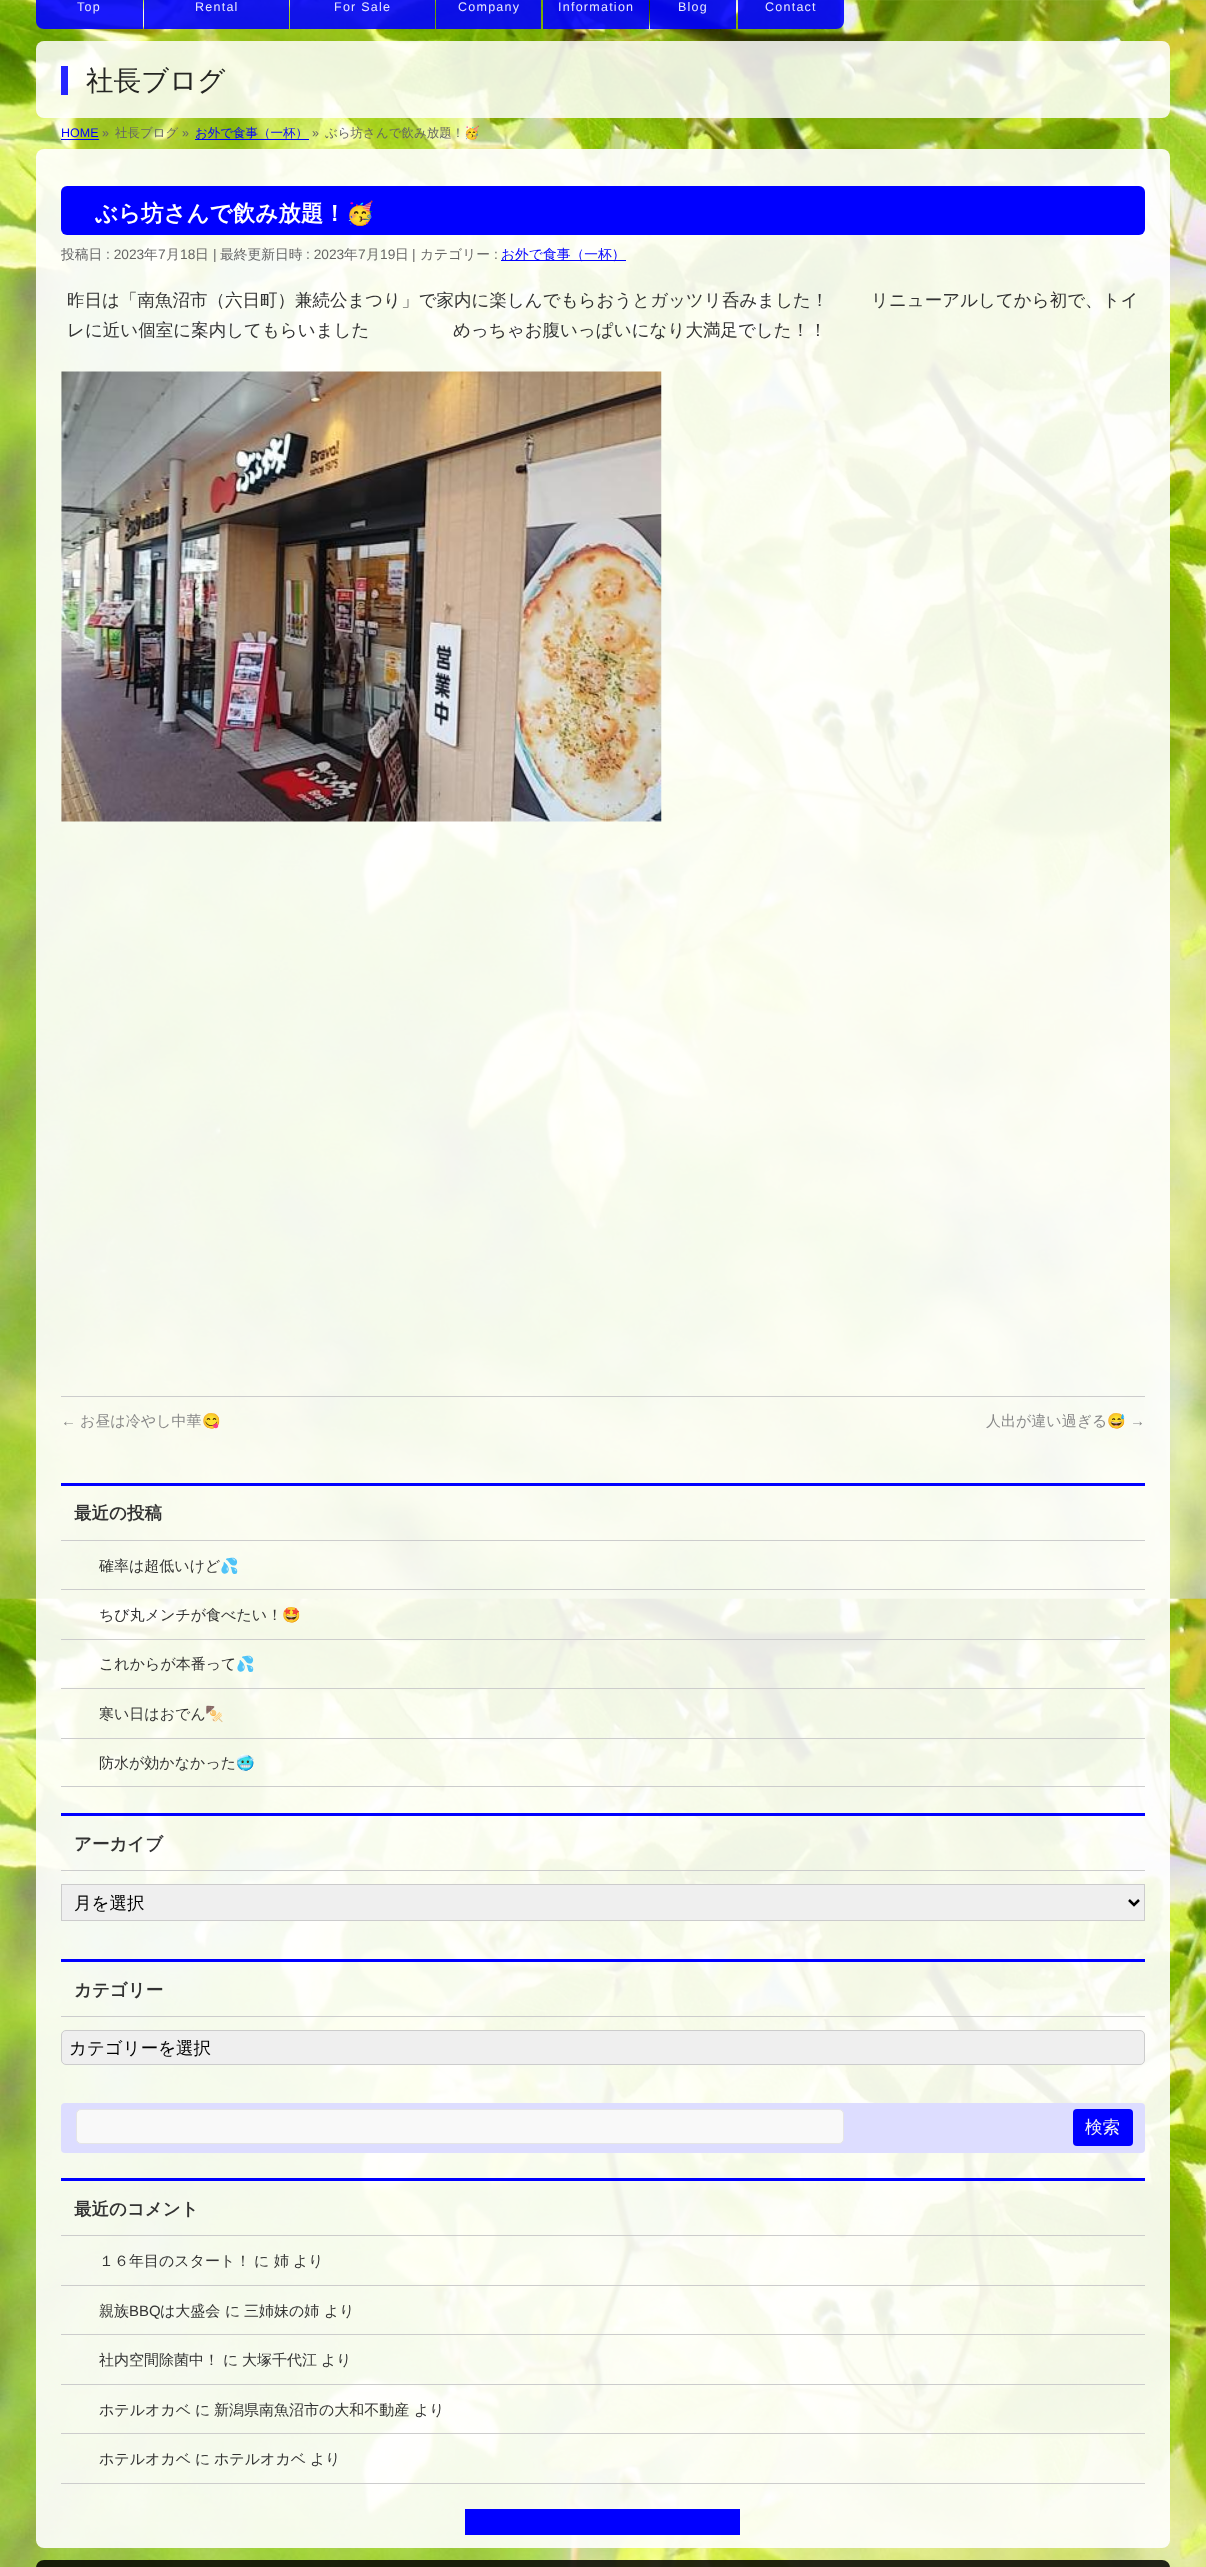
<?xml version="1.0" encoding="UTF-8"?>
<svg xmlns="http://www.w3.org/2000/svg" xmlns:xlink="http://www.w3.org/1999/xlink" width="1206" height="2567">
  <rect width="100%" height="100%" fill="#ffffff" />
  <image x="0" y="0" width="1206" height="2567" xlink:href="image1.png" />
  <path d="M 44 -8 h 99 v 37 h -99 c -4.5 0 -8 -3.5 -8 -8 v -21 c 0 -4.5 3.5 -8 8 -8 z" fill="#0000ff" fill-opacity="0.9" />
  <rect x="144" width="145" height="29" fill="#0000ff" fill-opacity="0.9" />
  <rect x="290" width="145" height="29" fill="#0000ff" fill-opacity="0.9" />
  <rect x="436" width="105" height="29" fill="#0000ff" fill-opacity="0.9" />
  <rect x="543" width="106" height="29" fill="#0000ff" fill-opacity="0.9" />
  <rect x="650" width="86" height="29" fill="#0000ff" fill-opacity="0.9" />
  <path d="M 738 -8 h 98 c 4.5 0 8 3.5 8 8 v 21 c 0 4.5 -3.5 8 -8 8 h -98 z" fill="#0000ff" fill-opacity="0.9" />
  <rect x="36" y="41" width="1134" height="77" rx="8" fill="#ffffff" fill-opacity="0.85" />
  <rect x="61" y="66" width="7" height="29" fill="#0000ff" fill-opacity="0.85" />
  <rect x="61" y="139" width="38" height="1" fill="#0000ff" />
  <rect x="195" y="139" width="114" height="1" fill="#0000ff" />
  <rect x="36" y="149" width="1134" height="2399" rx="8" fill="#ffffff" fill-opacity="0.9" />
  <rect x="61" y="186" width="1084" height="49" rx="6" fill="#0000ff" />
  <rect x="501" y="260" width="125" height="1" fill="#0000ff" />
  <image x="61" y="371" width="601" height="451" xlink:href="image2.png" />
  <rect x="61" y="1396" width="1084" height="1" fill="#cccccc" />
  <rect x="61" y="1483" width="1084" height="3" fill="#0000ff" />
  <rect x="61" y="1540" width="1084" height="1" fill="#cccccc" />
  <rect x="61" y="1589" width="1084" height="1" fill="#cccccc" />
  <rect x="61" y="1639" width="1084" height="1" fill="#cccccc" />
  <rect x="61" y="1688" width="1084" height="1" fill="#cccccc" />
  <rect x="61" y="1738" width="1084" height="1" fill="#cccccc" />
  <rect x="61" y="1786" width="1084" height="1" fill="#cccccc" />
  <rect x="61" y="1813" width="1084" height="3" fill="#0000ff" />
  <rect x="61" y="1870" width="1084" height="1" fill="#cccccc" />
  <rect x="61.5" y="1884.5" width="1083" height="36" fill="#efefef" stroke="#cccccc" />
  <path d="M 1129 1900 l 5 5 l 5 -5" fill="none" stroke="#000000" stroke-width="2.5" />
  <rect x="61" y="1959" width="1084" height="3" fill="#0000ff" />
  <rect x="61" y="2016" width="1084" height="1" fill="#cccccc" />
  <rect x="61.5" y="2030.5" width="1083" height="34" rx="4.5" fill="#efefef" stroke="#cccccc" />
  <rect x="61" y="2103" width="1084" height="50" rx="4" fill="#ddddff" />
  <rect x="76.5" y="2109.5" width="767" height="34" rx="4.5" fill="#f9f9f9" stroke="#e5e5e5" />
  <rect x="1073" y="2109" width="60" height="37" rx="4" fill="#0000ff" />
  <rect x="61" y="2178" width="1084" height="3" fill="#0000ff" />
  <rect x="61" y="2235" width="1084" height="1" fill="#cccccc" />
  <rect x="61" y="2285" width="1084" height="1" fill="#cccccc" />
  <rect x="61" y="2334" width="1084" height="1" fill="#cccccc" />
  <rect x="61" y="2384" width="1084" height="1" fill="#cccccc" />
  <rect x="61" y="2433" width="1084" height="1" fill="#cccccc" />
  <rect x="61" y="2483" width="1084" height="1" fill="#cccccc" />
  <rect x="465" y="2509" width="275" height="26" fill="#0000ff" />
  <path d="M 44 2560 h 1118 c 4.5 0 8 3.5 8 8 v 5 h -1134 v -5 c 0 -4.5 3.5 -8 8 -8 z" fill="#000000" fill-opacity="0.85" />
  <text x="77" y="11" style="font-family: Liberation Sans; font-size: 12.5px; letter-spacing: 1.25px; fill: #e8e8fe">Top</text>
  <text x="195" y="11" style="font-family: Liberation Sans; font-size: 12.5px; letter-spacing: 1.25px; fill: #e8e8fe">Rental</text>
  <text x="334" y="11" style="font-family: Liberation Sans; font-size: 12.5px; letter-spacing: 1.25px; fill: #e8e8fe">For Sale</text>
  <text x="458" y="11" style="font-family: Liberation Sans; font-size: 12.5px; letter-spacing: 1.25px; fill: #e8e8fe">Company</text>
  <text x="558" y="11" style="font-family: Liberation Sans; font-size: 12.5px; letter-spacing: 1.25px; fill: #e8e8fe">Information</text>
  <text x="678" y="11" style="font-family: Liberation Sans; font-size: 12.5px; letter-spacing: 1.25px; fill: #e8e8fe">Blog</text>
  <text x="765" y="11" style="font-family: Liberation Sans; font-size: 12.5px; letter-spacing: 1.25px; fill: #e8e8fe">Contact</text>
  <text x="86" y="90" style="font-family: WenQuanYi Zen Hei; font-size: 27.5px; font-weight: 500; fill: #242522">社長ブログ</text>
  <text x="61" y="137" style="font-family: Liberation Sans; font-size: 12.5px; fill: #0000ff">HOME</text>
  <text x="102" y="137" style="font-family: Liberation Sans; font-size: 12.5px; fill: #666666">»</text>
  <text x="115" y="137" style="font-family: WenQuanYi Zen Hei; font-size: 12.5px; font-weight: 500; fill: #666666">社長ブログ</text>
  <text x="182" y="137" style="font-family: Liberation Sans; font-size: 12.5px; fill: #666666">»</text>
  <text x="195" y="137" style="font-family: WenQuanYi Zen Hei; font-size: 12.5px; font-weight: 500; fill: #0000ff">お外で食事（一杯）</text>
  <text x="312" y="137" style="font-family: Liberation Sans; font-size: 12.5px; fill: #666666">»</text>
  <text x="325" y="137" style="font-family: WenQuanYi Zen Hei; font-size: 12.5px; font-weight: 500; fill: #666666">ぶら坊さんで飲み放題！</text>
  <text x="464" y="137" style="font-family: Noto Color Emoji; font-size: 12.5px; fill: #666666">🥳</text>
  <text x="95" y="221" style="font-family: WenQuanYi Zen Hei; font-size: 22.5px; font-weight: bold; fill: #ffffff">ぶら坊さんで飲み放題！</text>
  <text x="346" y="221" style="font-family: Noto Color Emoji; font-size: 22.5px; font-weight: bold; fill: #ffffff">🥳</text>
  <text x="61" y="259" style="font-family: WenQuanYi Zen Hei; font-size: 13.75px; font-weight: 500; fill: #666666">投稿日</text>
  <text x="106" y="259" style="font-family: Liberation Sans; font-size: 13.75px; fill: #666666">: 2023</text>
  <text x="144" y="259" style="font-family: WenQuanYi Zen Hei; font-size: 13.75px; font-weight: 500; fill: #666666">年</text>
  <text x="158" y="259" style="font-family: Liberation Sans; font-size: 13.75px; fill: #666666">7</text>
  <text x="166" y="259" style="font-family: WenQuanYi Zen Hei; font-size: 13.75px; font-weight: 500; fill: #666666">月</text>
  <text x="180" y="259" style="font-family: Liberation Sans; font-size: 13.75px; fill: #666666">18</text>
  <text x="195" y="259" style="font-family: WenQuanYi Zen Hei; font-size: 13.75px; font-weight: 500; fill: #666666">日</text>
  <text x="213" y="259" style="font-family: Liberation Sans; font-size: 13.75px; fill: #666666">|</text>
  <text x="220" y="259" style="font-family: WenQuanYi Zen Hei; font-size: 13.75px; font-weight: 500; fill: #666666">最終更新日時</text>
  <text x="306" y="259" style="font-family: Liberation Sans; font-size: 13.75px; fill: #666666">: 2023</text>
  <text x="344" y="259" style="font-family: WenQuanYi Zen Hei; font-size: 13.75px; font-weight: 500; fill: #666666">年</text>
  <text x="358" y="259" style="font-family: Liberation Sans; font-size: 13.75px; fill: #666666">7</text>
  <text x="366" y="259" style="font-family: WenQuanYi Zen Hei; font-size: 13.75px; font-weight: 500; fill: #666666">月</text>
  <text x="380" y="259" style="font-family: Liberation Sans; font-size: 13.75px; fill: #666666">19</text>
  <text x="395" y="259" style="font-family: WenQuanYi Zen Hei; font-size: 13.75px; font-weight: 500; fill: #666666">日</text>
  <text x="412" y="259" style="font-family: Liberation Sans; font-size: 13.75px; fill: #666666">|</text>
  <text x="420" y="259" style="font-family: WenQuanYi Zen Hei; font-size: 13.75px; font-weight: 500; fill: #666666">カテゴリー</text>
  <text x="494" y="259" style="font-family: Liberation Sans; font-size: 13.75px; fill: #666666">:</text>
  <text x="501" y="259" style="font-family: WenQuanYi Zen Hei; font-size: 13.75px; font-weight: 500; fill: #0000ff">お外で食事（一杯）</text>
  <text x="67" y="306" style="font-family: WenQuanYi Zen Hei; font-size: 17.5px; font-weight: 500; fill: #333333">昨日は「南魚沼市（六日町）兼続公まつり」で家内に楽しんでもらおうとガッツリ呑みました！</text>
  <text x="871" y="306" style="font-family: WenQuanYi Zen Hei; font-size: 17.5px; font-weight: 500; fill: #333333">リニューアルしてから初で、トイ</text>
  <text x="67" y="336" style="font-family: WenQuanYi Zen Hei; font-size: 17.5px; font-weight: 500; fill: #333333">レに近い個室に案内してもらいました</text>
  <text x="453" y="336" style="font-family: WenQuanYi Zen Hei; font-size: 17.5px; font-weight: 500; fill: #333333">めっちゃお腹いっぱいになり大満足でした！！</text>
  <text x="61" y="1426" style="font-family: Liberation Sans; font-size: 15px; fill: #888888">←</text>
  <text x="80" y="1426" style="font-family: WenQuanYi Zen Hei; font-size: 15px; font-weight: 500; fill: #888888">お昼は冷やし中華</text>
  <text x="202" y="1426" style="font-family: Noto Color Emoji; font-size: 15px; fill: #888888">😋</text>
  <text x="986" y="1426" style="font-family: WenQuanYi Zen Hei; font-size: 15px; font-weight: 500; fill: #888888">人出が違い過ぎる</text>
  <text x="1107" y="1426" style="font-family: Noto Color Emoji; font-size: 15px; fill: #888888">😅</text>
  <text x="1130" y="1426" style="font-family: Liberation Sans; font-size: 15px; fill: #888888">→</text>
  <text x="74" y="1519" style="font-family: WenQuanYi Zen Hei; font-size: 17.5px; font-weight: bold; fill: #333333">最近の投稿</text>
  <text x="99" y="1571" style="font-family: WenQuanYi Zen Hei; font-size: 15px; font-weight: 500; fill: #333333">確率は超低いけど</text>
  <text x="220" y="1571" style="font-family: Noto Color Emoji; font-size: 15px; fill: #333333">💦</text>
  <text x="99" y="1620" style="font-family: WenQuanYi Zen Hei; font-size: 15px; font-weight: 500; fill: #333333">ちび丸メンチが食べたい！</text>
  <text x="282" y="1620" style="font-family: Noto Color Emoji; font-size: 15px; fill: #333333">🤩</text>
  <text x="99" y="1669" style="font-family: WenQuanYi Zen Hei; font-size: 15px; font-weight: 500; fill: #333333">これからが本番って</text>
  <text x="236" y="1669" style="font-family: Noto Color Emoji; font-size: 15px; fill: #333333">💦</text>
  <text x="99" y="1719" style="font-family: WenQuanYi Zen Hei; font-size: 15px; font-weight: 500; fill: #333333">寒い日はおでん</text>
  <text x="205" y="1719" style="font-family: Noto Color Emoji; font-size: 15px; fill: #333333">🍢</text>
  <text x="99" y="1768" style="font-family: WenQuanYi Zen Hei; font-size: 15px; font-weight: 500; fill: #333333">防水が効かなかった</text>
  <text x="236" y="1768" style="font-family: Noto Color Emoji; font-size: 15px; fill: #333333">🥶</text>
  <text x="74" y="1850" style="font-family: WenQuanYi Zen Hei; font-size: 17.5px; font-weight: bold; fill: #333333">アーカイブ</text>
  <text x="74" y="1909" style="font-family: WenQuanYi Zen Hei; font-size: 17.5px; font-weight: 500; fill: #000000">月を選択</text>
  <text x="74" y="1996" style="font-family: WenQuanYi Zen Hei; font-size: 17.5px; font-weight: bold; fill: #333333">カテゴリー</text>
  <text x="69" y="2054" style="font-family: WenQuanYi Zen Hei; font-size: 17.5px; font-weight: 500; fill: #000000">カテゴリーを選択</text>
  <text x="1085" y="2133" style="font-family: WenQuanYi Zen Hei; font-size: 17.5px; font-weight: 500; fill: #f5f5f5">検索</text>
  <text x="74" y="2215" style="font-family: WenQuanYi Zen Hei; font-size: 17.5px; font-weight: bold; fill: #333333">最近のコメント</text>
  <text x="99" y="2266" style="font-family: WenQuanYi Zen Hei; font-size: 15px; font-weight: 500; fill: #333333">１６年目のスタート！</text>
  <text x="254" y="2266" style="font-family: WenQuanYi Zen Hei; font-size: 15px; font-weight: 500; fill: #333333">に</text>
  <text x="274" y="2266" style="font-family: WenQuanYi Zen Hei; font-size: 15px; font-weight: 500; fill: #333333">姉</text>
  <text x="293" y="2266" style="font-family: WenQuanYi Zen Hei; font-size: 15px; font-weight: 500; fill: #333333">より</text>
  <text x="99" y="2316" style="font-family: WenQuanYi Zen Hei; font-size: 15px; font-weight: 500; fill: #333333">親族</text>
  <text x="129" y="2316" style="font-family: Liberation Sans; font-size: 15px; fill: #333333">BBQ</text>
  <text x="160" y="2316" style="font-family: WenQuanYi Zen Hei; font-size: 15px; font-weight: 500; fill: #333333">は大盛会</text>
  <text x="225" y="2316" style="font-family: WenQuanYi Zen Hei; font-size: 15px; font-weight: 500; fill: #333333">に</text>
  <text x="244" y="2316" style="font-family: WenQuanYi Zen Hei; font-size: 15px; font-weight: 500; fill: #333333">三姉妹の姉</text>
  <text x="324" y="2316" style="font-family: WenQuanYi Zen Hei; font-size: 15px; font-weight: 500; fill: #333333">より</text>
  <text x="99" y="2365" style="font-family: WenQuanYi Zen Hei; font-size: 15px; font-weight: 500; fill: #333333">社内空間除菌中！</text>
  <text x="223" y="2365" style="font-family: WenQuanYi Zen Hei; font-size: 15px; font-weight: 500; fill: #333333">に</text>
  <text x="242" y="2365" style="font-family: WenQuanYi Zen Hei; font-size: 15px; font-weight: 500; fill: #333333">大塚千代江</text>
  <text x="321" y="2365" style="font-family: WenQuanYi Zen Hei; font-size: 15px; font-weight: 500; fill: #333333">より</text>
  <text x="99" y="2415" style="font-family: WenQuanYi Zen Hei; font-size: 15px; font-weight: 500; fill: #333333">ホテルオカベ</text>
  <text x="195" y="2415" style="font-family: WenQuanYi Zen Hei; font-size: 15px; font-weight: 500; fill: #333333">に</text>
  <text x="214" y="2415" style="font-family: WenQuanYi Zen Hei; font-size: 15px; font-weight: 500; fill: #333333">新潟県南魚沼市の大和不動産</text>
  <text x="414" y="2415" style="font-family: WenQuanYi Zen Hei; font-size: 15px; font-weight: 500; fill: #333333">より</text>
  <text x="99" y="2464" style="font-family: WenQuanYi Zen Hei; font-size: 15px; font-weight: 500; fill: #333333">ホテルオカベ</text>
  <text x="195" y="2464" style="font-family: WenQuanYi Zen Hei; font-size: 15px; font-weight: 500; fill: #333333">に</text>
  <text x="214" y="2464" style="font-family: WenQuanYi Zen Hei; font-size: 15px; font-weight: 500; fill: #333333">ホテルオカベ</text>
  <text x="310" y="2464" style="font-family: WenQuanYi Zen Hei; font-size: 15px; font-weight: 500; fill: #333333">より</text>
</svg>
